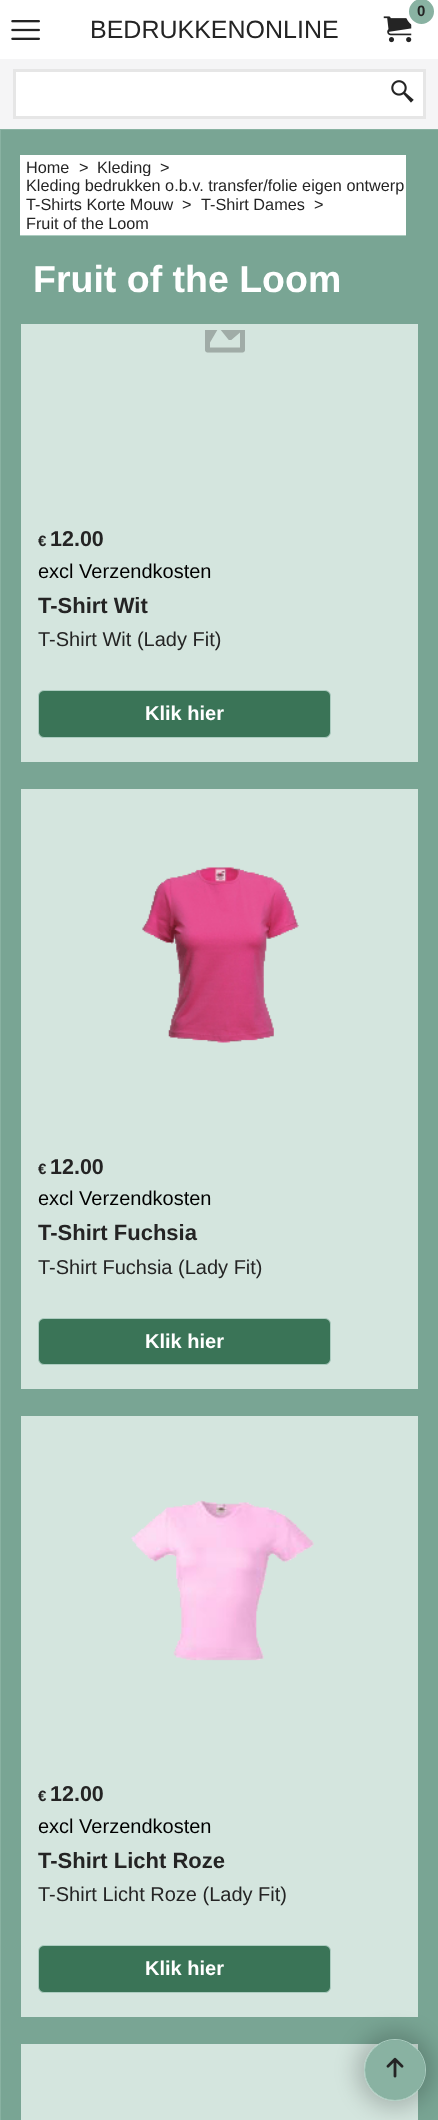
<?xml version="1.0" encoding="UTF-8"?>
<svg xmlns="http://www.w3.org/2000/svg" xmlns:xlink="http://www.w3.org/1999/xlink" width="438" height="2120">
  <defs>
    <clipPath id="clip1"><path d="M 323 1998 h 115 v 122 h -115 z m 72 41 c 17 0 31 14 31 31 c 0 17 -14 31 -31 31 c -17 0 -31 -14 -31 -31 c 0 -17 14 -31 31 -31 z" clip-rule="evenodd" /></clipPath>
    <clipPath id="clip2"><rect x="38" y="586" width="363" height="39" /></clipPath>
    <clipPath id="clip3"><rect x="38" y="1214" width="363" height="39" /></clipPath>
    <clipPath id="clip4"><rect x="38" y="1841" width="363" height="39" /></clipPath>
  </defs>
  <rect width="100%" height="100%" fill="#89b2a2" />
  <rect width="438" height="59" fill="#ffffff" />
  <image x="383" y="16" width="29" height="27" xlink:href="image1.png" />
  <circle cx="421.5" cy="11.5" r="14.5" fill="#89b2a2" stroke="#ffffff" stroke-width="4" />
  <image x="11" y="20" width="29" height="20" xlink:href="image2.png" />
  <rect y="59" width="438" height="70" fill="#f5f5f6" />
  <rect x="14.5" y="70.5" width="410" height="47" fill="#ffffff" stroke="#e6e6e6" stroke-width="3" />
  <image x="391" y="80" width="23" height="23" xlink:href="image3.png" />
  <rect x="1" y="130" width="437" height="1990" fill="#79a594" />
  <rect x="20" y="155" width="386" height="80" fill="#ffffff" />
  <rect x="20" y="235" width="386" height="1" fill="#acccc0" />
  <rect x="21" y="324" width="397" height="438" fill="#d4e5de" />
  <image x="205" y="330" width="40" height="23" xlink:href="image4.png" />
  <rect x="38.5" y="690.5" width="292" height="47" rx="5.5" fill="#3a7457" stroke="#acccc0" />
  <rect x="21" y="789" width="397" height="600" fill="#d4e5de" />
  <image x="142" y="867" width="157" height="176" xlink:href="image5.png" />
  <rect x="38.5" y="1318.5" width="292" height="46" rx="5.5" fill="#3a7457" stroke="#acccc0" />
  <rect x="21" y="1416" width="397" height="601" fill="#d4e5de" />
  <image x="131" y="1500" width="183" height="161" xlink:href="image6.png" />
  <rect x="38.5" y="1945.5" width="292" height="47" rx="5.5" fill="#3a7457" stroke="#acccc0" />
  <rect x="21" y="2044" width="397" height="76" fill="#d4e5de" />
  <g clip-path="url(#clip1)">
    <rect x="356" y="2031" width="78" height="78" rx="39" fill="#000000" fill-opacity="0.2" filter="blur(10.5px)" />
  </g>
  <circle cx="395" cy="2070" r="30.5" fill="none" stroke="#acccc0" />
  <circle cx="395" cy="2070" r="30" fill="#89b2a2" />
  <image x="386" y="2057" width="18" height="21" xlink:href="image7.png" />
  <text x="417" y="16" style="font-family: Liberation Sans; font-size: 15px; font-weight: bold; fill: #242424">0</text>
  <text x="90" y="38" style="font-family: Liberation Sans; font-size: 25px; fill: #242424">BEDRUKKENONLINE</text>
  <text x="26" y="173" style="font-family: Liberation Sans; font-size: 16.25px; fill: #242424">Home</text>
  <text x="79" y="173" style="font-family: Liberation Sans; font-size: 16.25px; fill: #242424">&gt;</text>
  <text x="97" y="173" style="font-family: Liberation Sans; font-size: 16.25px; fill: #242424">Kleding</text>
  <text x="160" y="173" style="font-family: Liberation Sans; font-size: 16.25px; fill: #242424">&gt;</text>
  <text x="26" y="191" style="font-family: Liberation Sans; font-size: 16.25px; fill: #242424">Kleding bedrukken o.b.v. transfer/folie eigen ontwerp</text>
  <rect x="145" y="176" width="4" height="1" fill="#ffffff" />
  <text x="26" y="210" style="font-family: Liberation Sans; font-size: 16.25px; fill: #242424">T-Shirts Korte Mouw</text>
  <text x="182" y="210" style="font-family: Liberation Sans; font-size: 16.25px; fill: #242424">&gt;</text>
  <text x="201" y="210" style="font-family: Liberation Sans; font-size: 16.25px; fill: #242424">T-Shirt Dames</text>
  <text x="314" y="210" style="font-family: Liberation Sans; font-size: 16.25px; fill: #242424">&gt;</text>
  <text x="26" y="229" style="font-family: Liberation Sans; font-size: 16.25px; fill: #242424">Fruit of the Loom</text>
  <text x="33" y="292" style="font-family: Liberation Sans; font-size: 37.5px; font-weight: bold; fill: #ffffff">Fruit of the Loom</text>
  <text x="38" y="546" style="font-family: Liberation Sans; font-size: 15px; font-weight: bold; fill: #242424">€</text>
  <text x="50" y="546" style="font-family: Liberation Sans; font-size: 21.5px; font-weight: bold; fill: #242424">12.00</text>
  <text x="38" y="578" style="font-family: Liberation Sans; font-size: 20px; fill: #000000">excl Verzendkosten</text>
  <g clip-path="url(#clip2)">
    <text x="38" y="613" style="font-family: Liberation Sans; font-size: 22px; font-weight: bold; fill: #242424">T-Shirt Wit</text>
  </g>
  <text x="38" y="646" style="font-family: Liberation Sans; font-size: 20px; fill: #242424">T-Shirt Wit (Lady Fit)</text>
  <text x="145" y="720" style="font-family: Liberation Sans; font-size: 20px; font-weight: bold; fill: #ffffff">Klik hier</text>
  <text x="38" y="1174" style="font-family: Liberation Sans; font-size: 15px; font-weight: bold; fill: #242424">€</text>
  <text x="50" y="1174" style="font-family: Liberation Sans; font-size: 21.5px; font-weight: bold; fill: #242424">12.00</text>
  <text x="38" y="1205" style="font-family: Liberation Sans; font-size: 20px; fill: #000000">excl Verzendkosten</text>
  <g clip-path="url(#clip3)">
    <text x="38" y="1240" style="font-family: Liberation Sans; font-size: 22px; font-weight: bold; fill: #242424">T-Shirt Fuchsia</text>
  </g>
  <text x="38" y="1274" style="font-family: Liberation Sans; font-size: 20px; fill: #242424">T-Shirt Fuchsia (Lady Fit)</text>
  <text x="145" y="1348" style="font-family: Liberation Sans; font-size: 20px; font-weight: bold; fill: #ffffff">Klik hier</text>
  <text x="38" y="1801" style="font-family: Liberation Sans; font-size: 15px; font-weight: bold; fill: #242424">€</text>
  <text x="50" y="1801" style="font-family: Liberation Sans; font-size: 21.5px; font-weight: bold; fill: #242424">12.00</text>
  <text x="38" y="1833" style="font-family: Liberation Sans; font-size: 20px; fill: #000000">excl Verzendkosten</text>
  <g clip-path="url(#clip4)">
    <text x="38" y="1868" style="font-family: Liberation Sans; font-size: 22px; font-weight: bold; fill: #242424">T-Shirt Licht Roze</text>
  </g>
  <text x="38" y="1901" style="font-family: Liberation Sans; font-size: 20px; fill: #242424">T-Shirt Licht Roze (Lady Fit)</text>
  <text x="145" y="1975" style="font-family: Liberation Sans; font-size: 20px; font-weight: bold; fill: #ffffff">Klik hier</text>
</svg>
